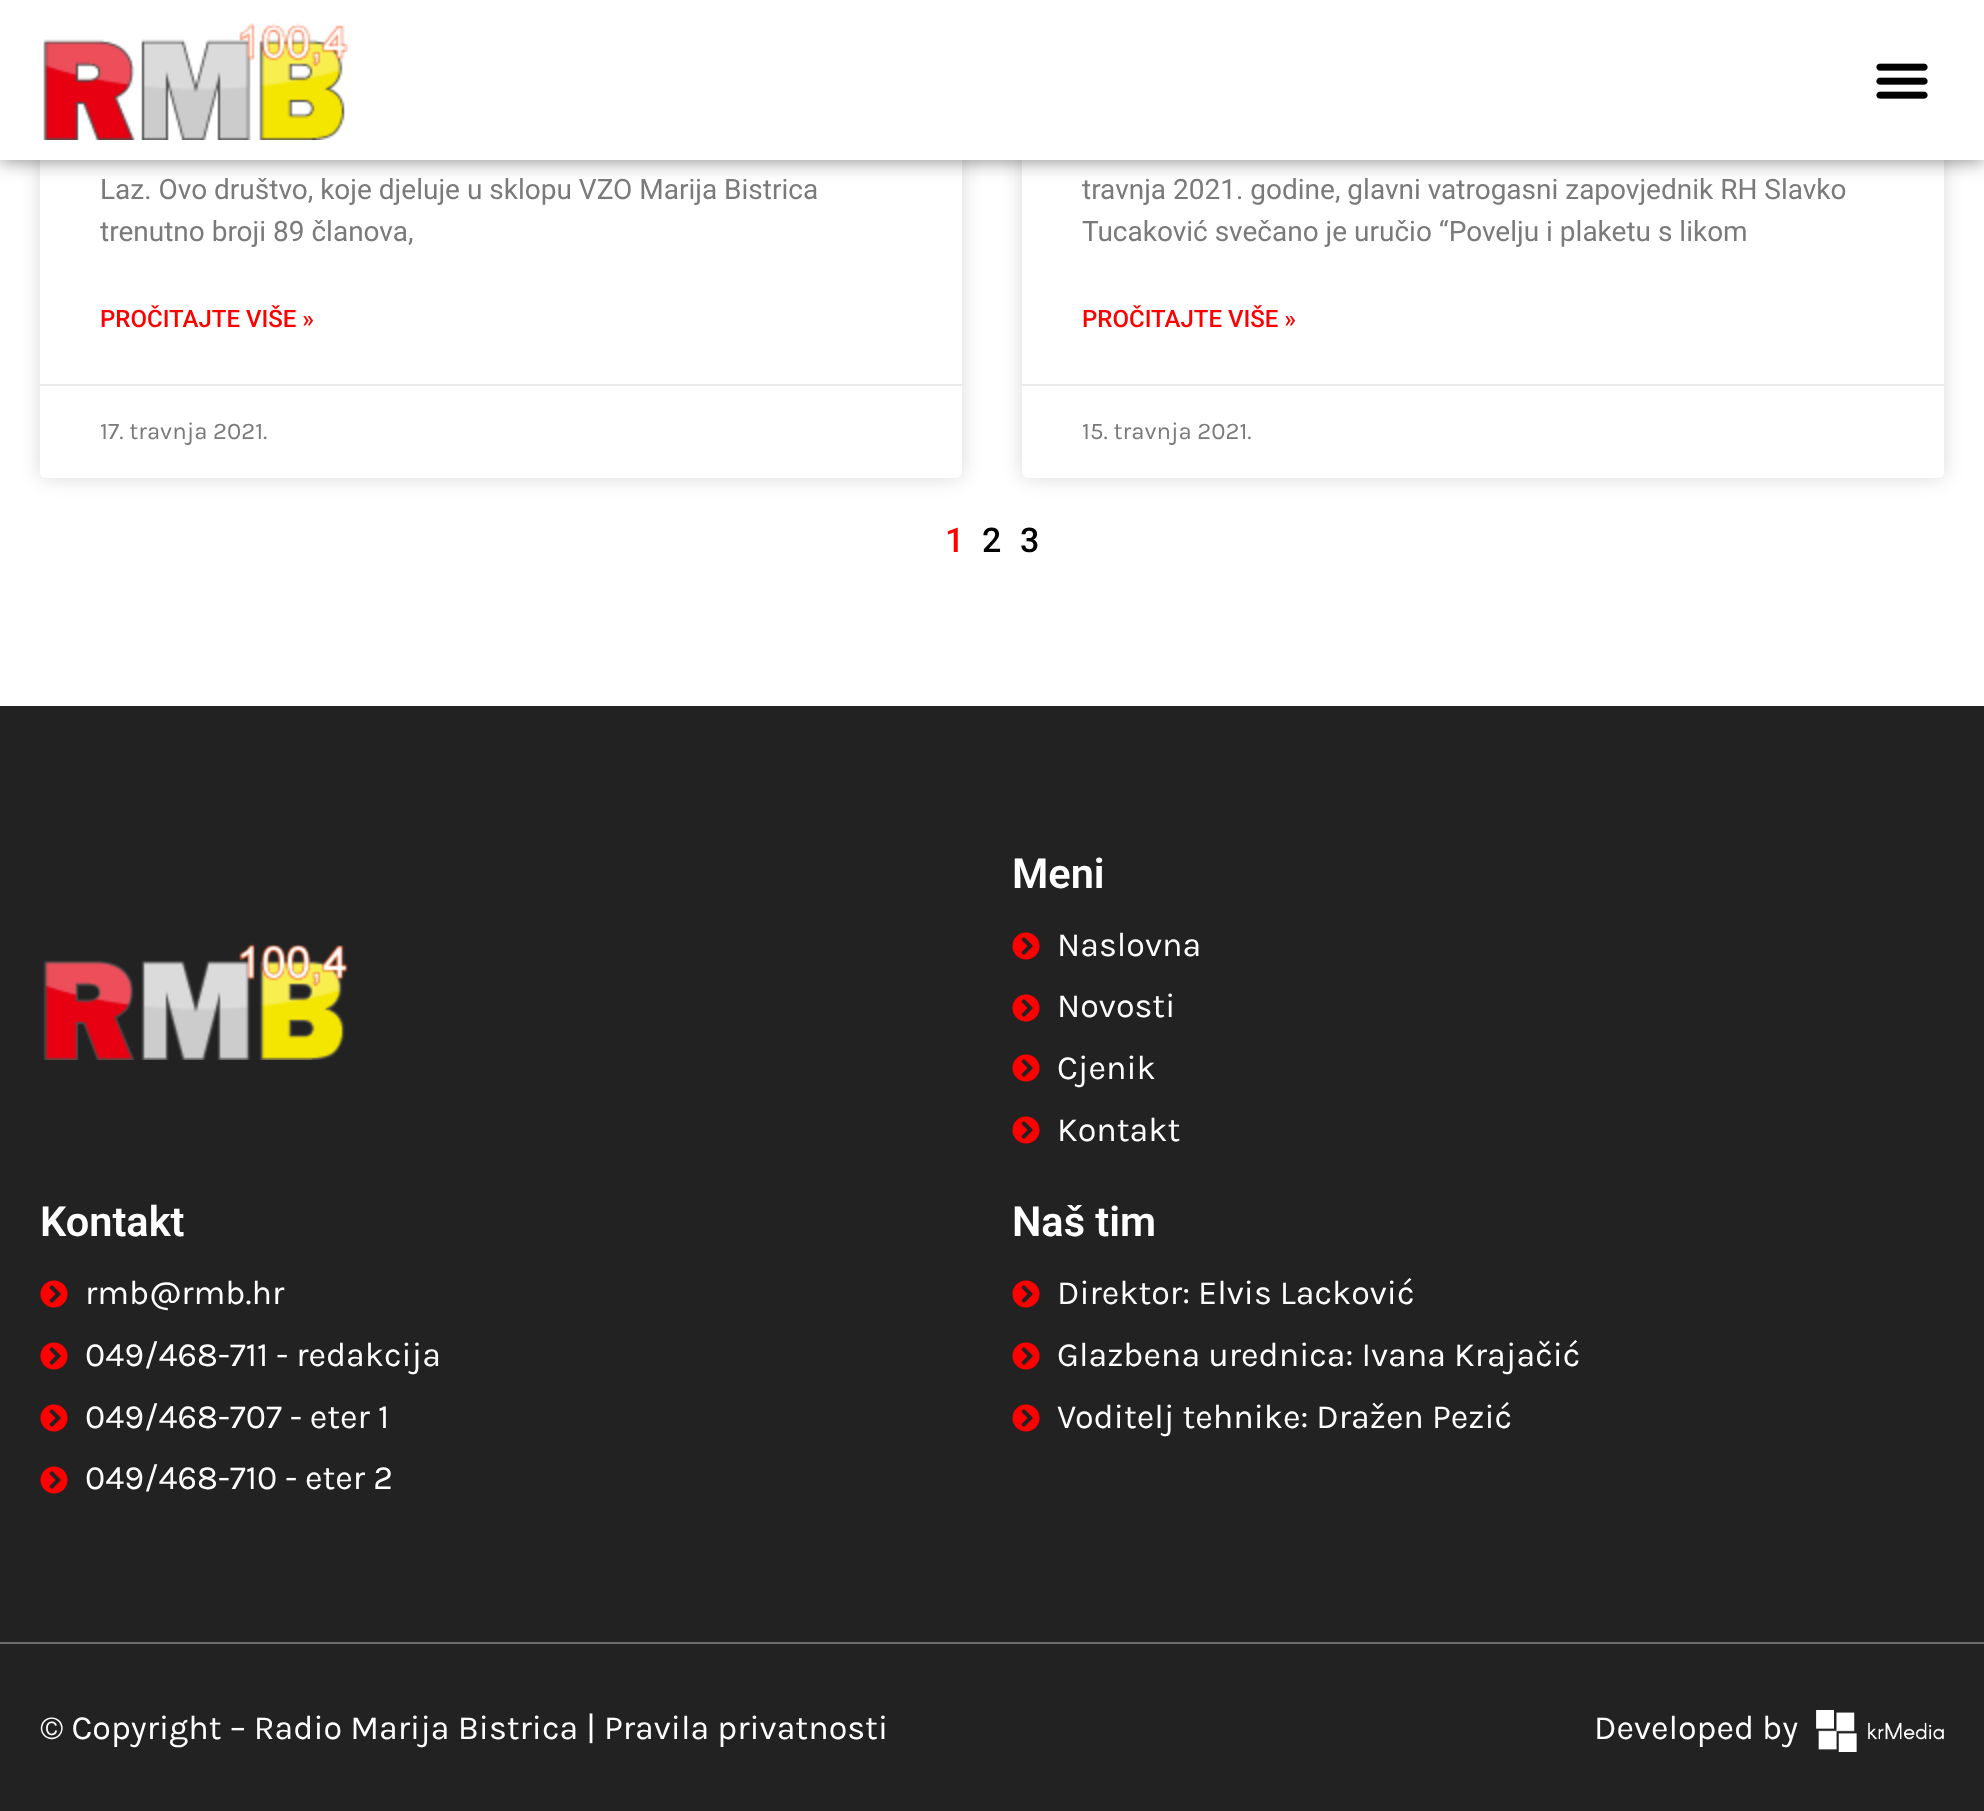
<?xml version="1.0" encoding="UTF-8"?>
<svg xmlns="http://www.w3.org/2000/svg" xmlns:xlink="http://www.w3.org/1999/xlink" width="1984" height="1811">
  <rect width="100%" height="100%" fill="#ffffff" />
  <rect x="40" y="-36" width="922" height="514" rx="6" fill="#000000" fill-opacity="0.15" filter="blur(10px)" />
  <rect x="40" y="-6" width="922" height="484" rx="6" fill="#ffffff" />
  <rect x="1022" y="-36" width="922" height="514" rx="6" fill="#000000" fill-opacity="0.15" filter="blur(10px)" />
  <rect x="1022" y="-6" width="922" height="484" rx="6" fill="#ffffff" />
  <rect width="1984" height="160" fill="#000000" fill-opacity="0.5" filter="blur(10px)" />
  <rect width="1984" height="160" fill="#ffffff" />
  <image x="43" y="23" width="305" height="117" xlink:href="image1.png" />
  <image x="1876" y="63" width="52" height="36" xlink:href="image2.png" />
  <rect x="40" y="384" width="922" height="2" fill="#eaeaea" />
  <rect x="1022" y="384" width="922" height="2" fill="#eaeaea" />
  <rect y="706" width="1984" height="936" fill="#222222" />
  <image x="43" y="943" width="305" height="117" xlink:href="image3.png" />
  <image x="1012" y="932" width="28" height="28" xlink:href="image4.png" />
  <image x="1012" y="994" width="28" height="28" xlink:href="image4.png" />
  <image x="1012" y="1054" width="28" height="28" xlink:href="image4.png" />
  <image x="1012" y="1116" width="28" height="28" xlink:href="image4.png" />
  <image x="40" y="1280" width="28" height="28" xlink:href="image4.png" />
  <image x="40" y="1342" width="28" height="28" xlink:href="image4.png" />
  <image x="40" y="1404" width="28" height="28" xlink:href="image4.png" />
  <image x="40" y="1466" width="28" height="28" xlink:href="image4.png" />
  <image x="1012" y="1280" width="28" height="28" xlink:href="image4.png" />
  <image x="1012" y="1342" width="28" height="28" xlink:href="image4.png" />
  <image x="1012" y="1404" width="28" height="28" xlink:href="image4.png" />
  <rect y="1644" width="1984" height="167" fill="#222222" />
  <rect y="1642" width="1984" height="2" fill="#6d6d6d" />
  <image x="1816" y="1710" width="128" height="42" xlink:href="image5.png" />
  <text x="100" y="199" style="font-family: Roboto; font-size: 28px; fill: #7a7a7a">Laz. Ovo društvo, koje djeluje u sklopu VZO Marija Bistrica</text>
  <text x="100" y="241" style="font-family: Roboto; font-size: 28px; fill: #7a7a7a">trenutno broji 89 članova,</text>
  <text x="100" y="327" style="font-family: Roboto; font-size: 24px; font-weight: 500; fill: #ff0000">PROČITAJTE VIŠE »</text>
  <text x="100" y="439" style="font-family: Karla; font-size: 24px; fill: #7a7a7a">17. travnja 2021.</text>
  <text x="1082" y="199" style="font-family: Roboto; font-size: 28px; fill: #7a7a7a">travnja 2021. godine, glavni vatrogasni zapovjednik RH Slavko</text>
  <text x="1082" y="241" style="font-family: Roboto; font-size: 28px; fill: #7a7a7a">Tucaković svečano je uručio “Povelju i plaketu s likom</text>
  <text x="1082" y="327" style="font-family: Roboto; font-size: 24px; font-weight: 500; fill: #ff0000">PROČITAJTE VIŠE »</text>
  <text x="1082" y="439" style="font-family: Karla; font-size: 24px; fill: #7a7a7a">15. travnja 2021.</text>
  <text x="945" y="552" style="font-family: Roboto; font-size: 34px; font-weight: 500; fill: #ff0000">1</text>
  <text x="982" y="552" style="font-family: Roboto; font-size: 34px; font-weight: 500; fill: #000000">2</text>
  <text x="1020" y="552" style="font-family: Roboto; font-size: 34px; font-weight: 500; fill: #000000">3</text>
  <text x="1012" y="888" style="font-family: Roboto; font-size: 41.5px; font-weight: 600; fill: #ffffff">Meni</text>
  <text x="1057" y="956" style="font-family: Karla; font-size: 34px; fill: #ffffff">Naslovna</text>
  <text x="1057" y="1017" style="font-family: Karla; font-size: 34px; fill: #ffffff">Novosti</text>
  <text x="1057" y="1079" style="font-family: Karla; font-size: 34px; fill: #ffffff">Cjenik</text>
  <text x="1057" y="1141" style="font-family: Karla; font-size: 34px; fill: #ffffff">Kontakt</text>
  <text x="40" y="1236" style="font-family: Roboto; font-size: 41.5px; font-weight: 600; fill: #ffffff">Kontakt</text>
  <text x="85" y="1304" style="font-family: Karla; font-size: 34px; fill: #ffffff">rmb@rmb.hr</text>
  <text x="85" y="1366" style="font-family: Karla; font-size: 34px; fill: #ffffff">049/468-711 - redakcija</text>
  <text x="85" y="1428" style="font-family: Karla; font-size: 34px; fill: #ffffff">049/468-707 - eter 1</text>
  <text x="85" y="1489" style="font-family: Karla; font-size: 34px; fill: #ffffff">049/468-710 - eter 2</text>
  <text x="1012" y="1236" style="font-family: Roboto; font-size: 41.5px; font-weight: 600; fill: #ffffff">Naš tim</text>
  <text x="1057" y="1304" style="font-family: Karla; font-size: 34px; fill: #ffffff">Direktor: Elvis Lacković</text>
  <text x="1057" y="1366" style="font-family: Karla; font-size: 34px; fill: #ffffff">Glazbena urednica: Ivana Krajačić</text>
  <text x="1057" y="1428" style="font-family: Karla; font-size: 34px; fill: #ffffff">Voditelj tehnike: Dražen Pezić</text>
  <text x="40" y="1739" style="font-family: Karla; font-size: 34px; fill: #ffffff">© Copyright – Radio Marija Bistrica | Pravila privatnosti</text>
  <text x="1594" y="1739" style="font-family: Karla; font-size: 34px; fill: #ffffff">Developed by</text>
</svg>
